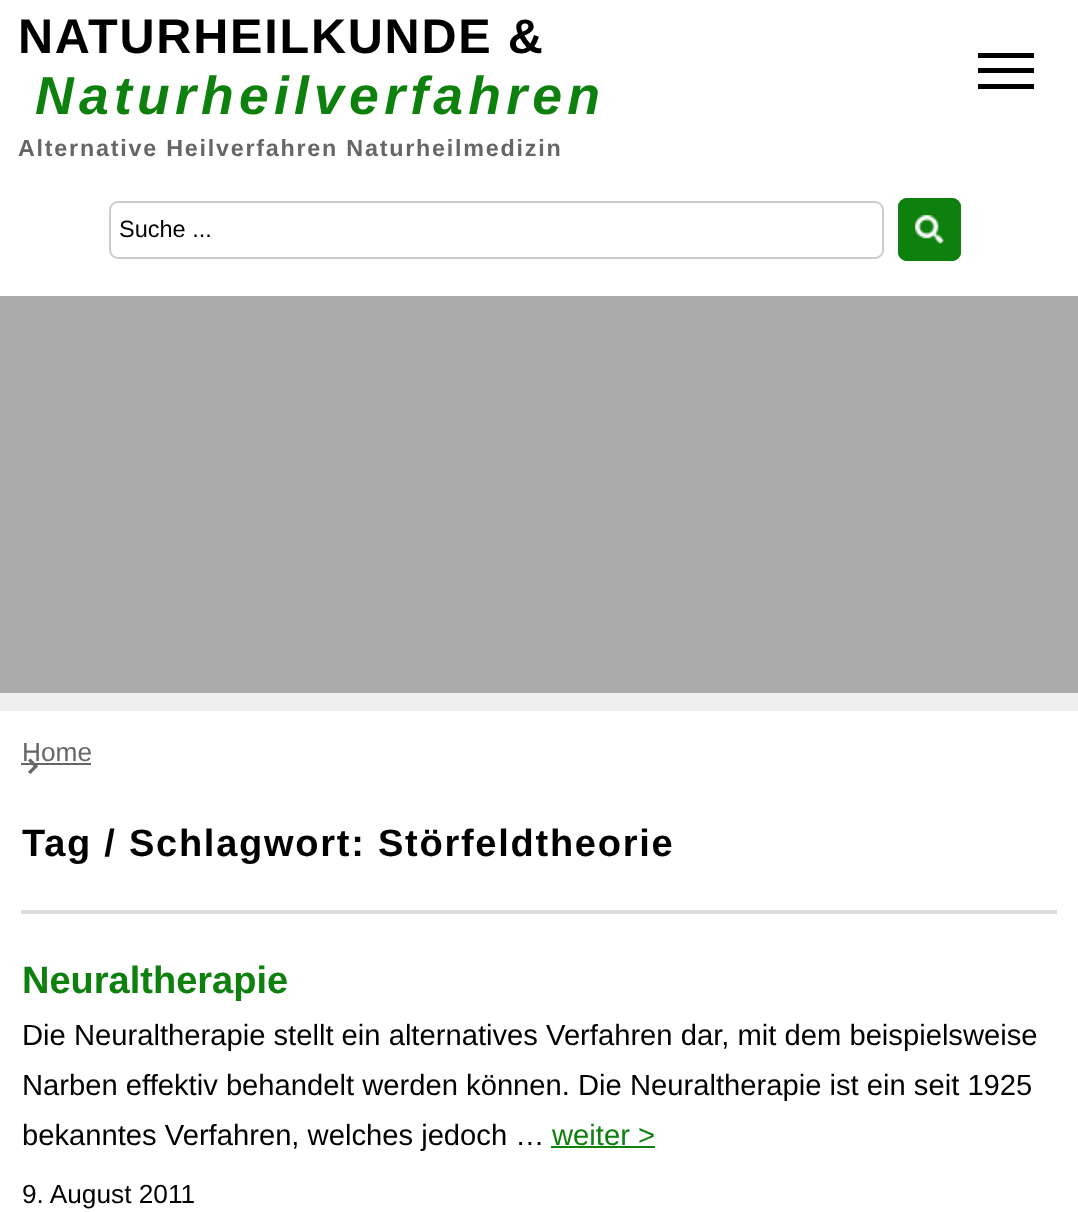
<?xml version="1.0" encoding="UTF-8"?>
<svg xmlns="http://www.w3.org/2000/svg" xmlns:xlink="http://www.w3.org/1999/xlink" width="1078" height="1212">
  <rect width="100%" height="100%" fill="#eeeeee" />
  <rect y="296" width="1078" height="397" fill="#aaaaaa" />
  <rect width="1078" height="296" fill="#ffffff" />
  <rect x="110" y="202" width="773" height="56" rx="8" fill="none" stroke="#cccccc" stroke-width="2" />
  <rect x="898" y="198" width="63" height="63" rx="9" fill="#0e800d" />
  <image x="915" y="215" width="29" height="29" xlink:href="image1.png" />
  <rect x="899" y="199" width="61" height="61" rx="8" fill="none" stroke="#0e800d" stroke-width="2" />
  <rect x="978" y="53" width="56" height="5" fill="#000000" />
  <rect x="978" y="68" width="56" height="5" fill="#000000" />
  <rect x="978" y="84" width="56" height="5" fill="#000000" />
  <rect y="711" width="1078" height="501" fill="#ffffff" />
  <rect x="21" y="763" width="70" height="2" fill="#666666" />
  <rect x="21" y="910" width="1036" height="4" fill="#dddddd" />
  <rect x="551" y="1146" width="104" height="2" fill="#0e800d" />
  <text x="18" y="53" style="font-family: Liberation Sans; font-size: 48.6px; font-weight: bold; letter-spacing: 1.75px; fill: #000000">NATURHEILKUNDE &amp;</text>
  <text x="35" y="114" style="font-family: Liberation Sans; font-size: 53.5px; font-weight: bold; font-style: italic; letter-spacing: 5.25px; fill: #0e800d">Naturheilverfahren</text>
  <text x="18" y="156" style="font-family: Liberation Sans; font-size: 23.35px; font-weight: bold; letter-spacing: 1.75px; fill: #666666">Alternative Heilverfahren Naturheilmedizin</text>
  <text x="119" y="237" style="font-family: Liberation Sans; font-size: 23.5px; fill: #000000">Suche ...</text>
  <text x="22" y="761" style="font-family: Liberation Sans; font-size: 26.25px; fill: #666666">Home</text>
  <image x="28" y="758" width="11" height="16" xlink:href="image2.png" />
  <text x="22" y="856" style="font-family: Liberation Sans; font-size: 38px; font-weight: bold; letter-spacing: 1.75px; fill: #000000">Tag / Schlagwort: Störfeldtheorie</text>
  <text x="22" y="993" style="font-family: Liberation Sans; font-size: 38px; font-weight: bold; fill: #0e800d">Neuraltherapie</text>
  <text x="22" y="1045" style="font-family: Liberation Sans; font-size: 29.2px; fill: #000000">Die Neuraltherapie stellt ein alternatives Verfahren dar, mit dem beispielsweise</text>
  <text x="22" y="1095" style="font-family: Liberation Sans; font-size: 29.2px; fill: #000000">Narben effektiv behandelt werden können. Die Neuraltherapie ist ein seit 1925</text>
  <text x="22" y="1145" style="font-family: Liberation Sans; font-size: 29.2px; fill: #000000">bekanntes Verfahren, welches jedoch …</text>
  <text x="552" y="1145" style="font-family: Liberation Sans; font-size: 29.2px; fill: #0e800d">weiter &gt;</text>
  <text x="22" y="1203" style="font-family: Liberation Sans; font-size: 26.25px; fill: #000000">9. August 2011</text>
</svg>
